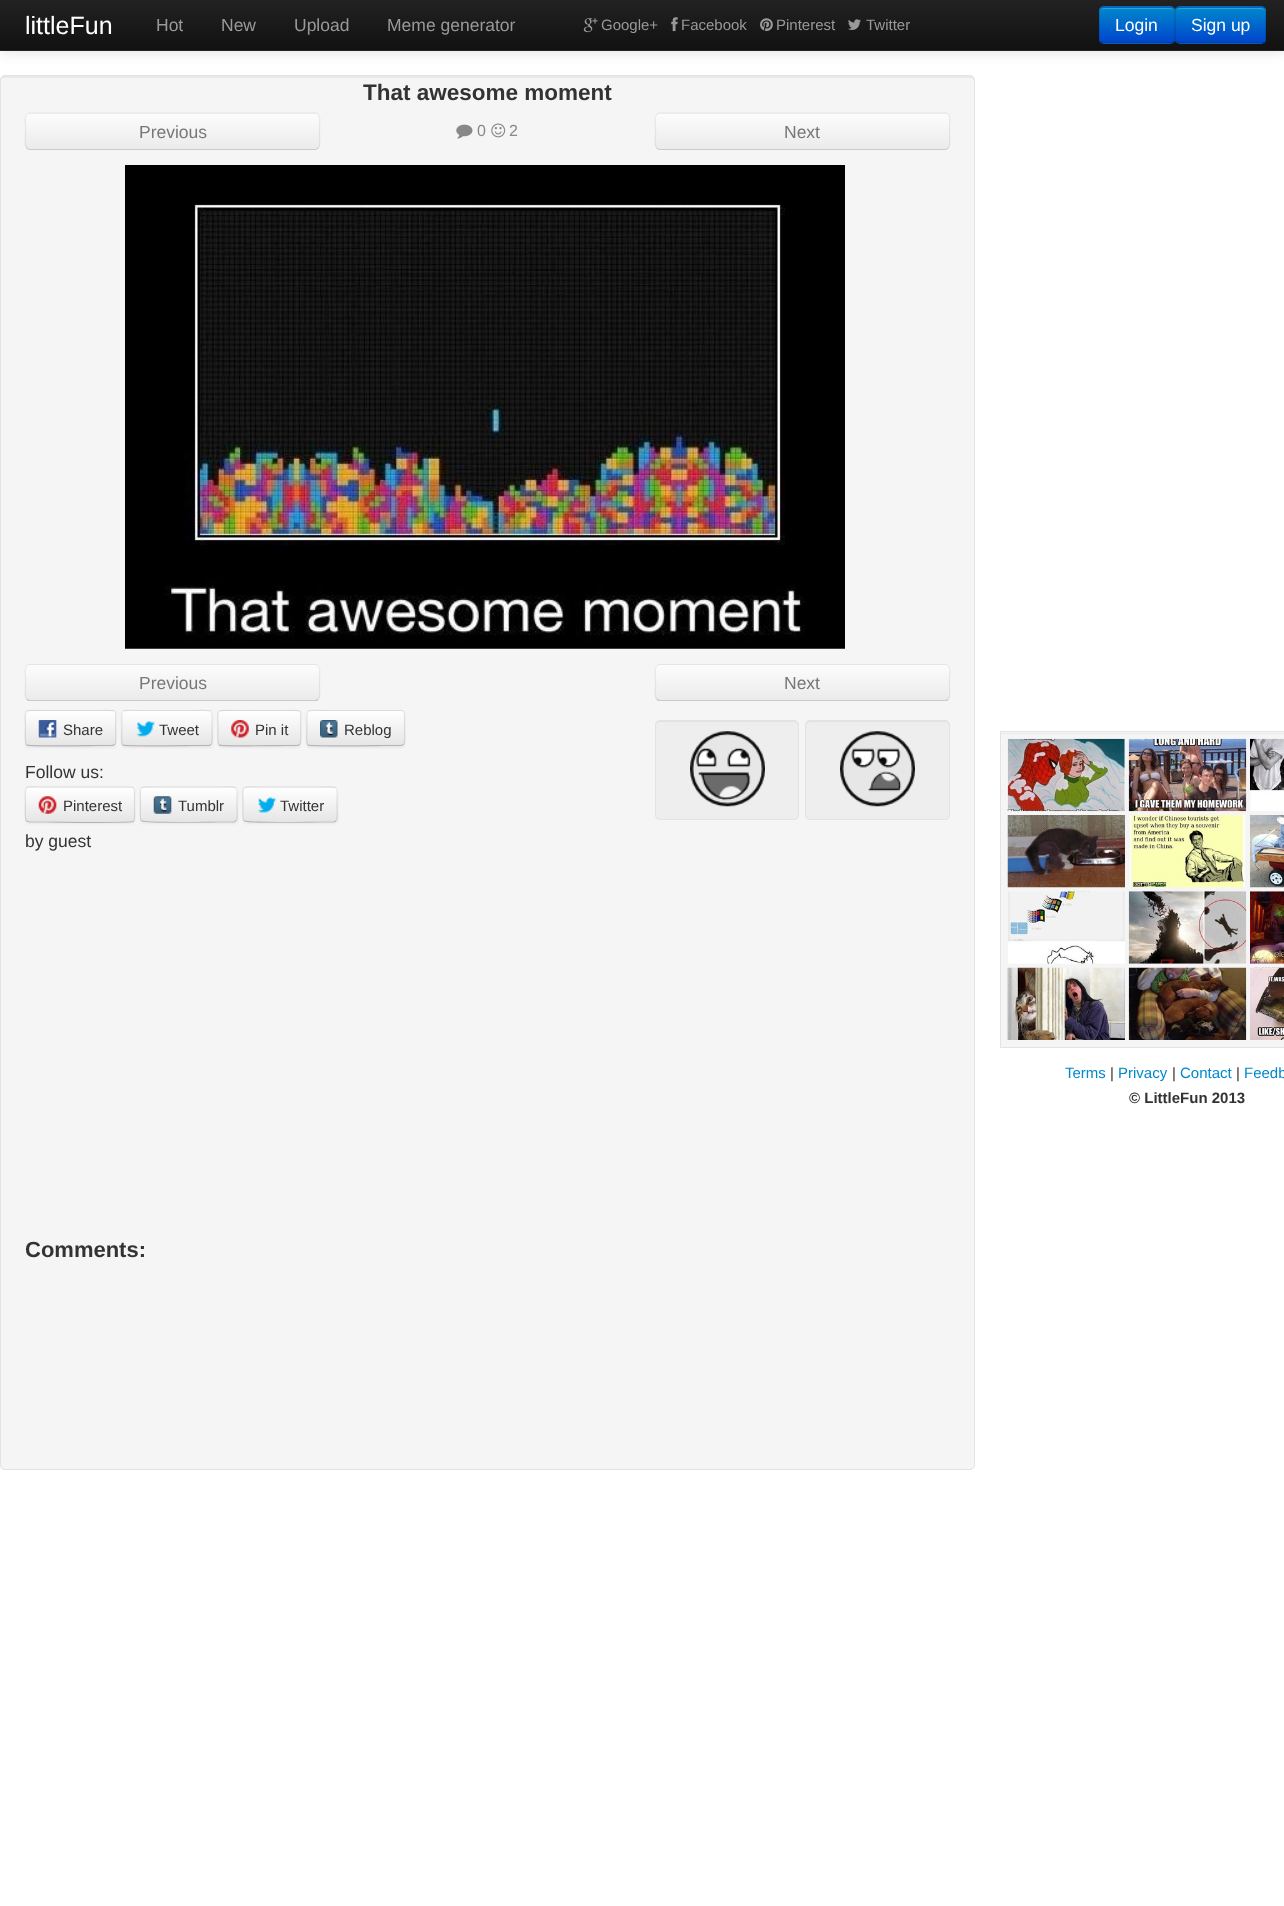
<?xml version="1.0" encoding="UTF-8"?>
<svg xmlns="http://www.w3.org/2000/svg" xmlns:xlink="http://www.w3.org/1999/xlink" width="1284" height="1906">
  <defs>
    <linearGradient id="g1" gradientUnits="userSpaceOnUse" x1="643" y1="0" x2="643" y2="50"><stop offset="0" stop-color="#222222" /><stop offset="1" stop-color="#111111" /></linearGradient>
    <clipPath id="clip1"><rect x="1175" y="6" width="91" height="38" rx="5" /></clipPath>
    <linearGradient id="g2" gradientUnits="userSpaceOnUse" x1="1221" y1="7.5" x2="1221" y2="43"><stop offset="0" stop-color="#0088cc" /><stop offset="1" stop-color="#0044cc" /></linearGradient>
    <clipPath id="clip2"><rect x="1099" y="6" width="76" height="38" rx="5" /></clipPath>
    <linearGradient id="g3" gradientUnits="userSpaceOnUse" x1="1137" y1="7.5" x2="1137" y2="43"><stop offset="0" stop-color="#0088cc" /><stop offset="1" stop-color="#0044cc" /></linearGradient>
    <clipPath id="clip3"><rect x="25" y="113" width="295" height="37" rx="5" /></clipPath>
    <linearGradient id="g4" gradientUnits="userSpaceOnUse" x1="173" y1="114" x2="173" y2="149"><stop offset="0" stop-color="#fcfcfc" /><stop offset="1" stop-color="#ebebeb" /></linearGradient>
    <clipPath id="clip4"><rect x="655" y="113" width="295" height="37" rx="5" /></clipPath>
    <linearGradient id="g5" gradientUnits="userSpaceOnUse" x1="803" y1="114" x2="803" y2="149"><stop offset="0" stop-color="#fcfcfc" /><stop offset="1" stop-color="#ebebeb" /></linearGradient>
    <clipPath id="clip5"><rect x="25" y="664" width="295" height="37" rx="5" /></clipPath>
    <linearGradient id="g6" gradientUnits="userSpaceOnUse" x1="173" y1="665" x2="173" y2="700"><stop offset="0" stop-color="#fcfcfc" /><stop offset="1" stop-color="#ebebeb" /></linearGradient>
    <clipPath id="clip6"><rect x="655" y="664" width="295" height="37" rx="5" /></clipPath>
    <linearGradient id="g7" gradientUnits="userSpaceOnUse" x1="803" y1="665" x2="803" y2="700"><stop offset="0" stop-color="#fcfcfc" /><stop offset="1" stop-color="#ebebeb" /></linearGradient>
    <clipPath id="clip7"><rect x="25" y="710" width="91" height="36" rx="4" /></clipPath>
    <linearGradient id="g8" gradientUnits="userSpaceOnUse" x1="71" y1="711" x2="71" y2="745"><stop offset="0" stop-color="#ffffff" /><stop offset="1" stop-color="#e6e6e6" /></linearGradient>
    <clipPath id="clip8"><rect x="121" y="710" width="92" height="36" rx="4" /></clipPath>
    <linearGradient id="g9" gradientUnits="userSpaceOnUse" x1="167" y1="711" x2="167" y2="745"><stop offset="0" stop-color="#ffffff" /><stop offset="1" stop-color="#e6e6e6" /></linearGradient>
    <clipPath id="clip9"><rect x="218" y="710" width="83" height="36" rx="4" /></clipPath>
    <linearGradient id="g10" gradientUnits="userSpaceOnUse" x1="259" y1="711" x2="259" y2="745"><stop offset="0" stop-color="#ffffff" /><stop offset="1" stop-color="#e6e6e6" /></linearGradient>
    <clipPath id="clip10"><rect x="306" y="710" width="99" height="36" rx="4" /></clipPath>
    <linearGradient id="g11" gradientUnits="userSpaceOnUse" x1="356" y1="711" x2="356" y2="745"><stop offset="0" stop-color="#ffffff" /><stop offset="1" stop-color="#e6e6e6" /></linearGradient>
    <clipPath id="clip11"><rect x="25" y="786" width="110" height="37" rx="4" /></clipPath>
    <linearGradient id="g12" gradientUnits="userSpaceOnUse" x1="80" y1="788" x2="80" y2="821"><stop offset="0" stop-color="#ffffff" /><stop offset="1" stop-color="#e6e6e6" /></linearGradient>
    <clipPath id="clip12"><rect x="140" y="786" width="98" height="37" rx="4" /></clipPath>
    <linearGradient id="g13" gradientUnits="userSpaceOnUse" x1="189" y1="788" x2="189" y2="821"><stop offset="0" stop-color="#ffffff" /><stop offset="1" stop-color="#e6e6e6" /></linearGradient>
    <clipPath id="clip13"><rect x="243" y="786" width="95" height="37" rx="4" /></clipPath>
    <linearGradient id="g14" gradientUnits="userSpaceOnUse" x1="290" y1="788" x2="290" y2="821"><stop offset="0" stop-color="#ffffff" /><stop offset="1" stop-color="#e6e6e6" /></linearGradient>
  </defs>
  <rect width="100%" height="100%" fill="#ffffff" />
  <rect y="1" width="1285" height="52" fill="#000000" fill-opacity="0.1" filter="blur(6px)" />
  <rect width="1284" height="50" fill="url(#g1)" />
  <rect y="50" width="1284" height="1" fill="#252525" />
  <image x="583" y="18" width="15" height="15" xlink:href="image1.png" />
  <image x="671" y="17" width="7" height="15" xlink:href="image2.png" />
  <image x="760" y="18" width="13" height="14" xlink:href="image3.png" />
  <image x="848" y="19" width="13" height="11" xlink:href="image4.png" />
  <rect x="1175" y="6" width="91" height="38" rx="5" fill="#006dcc" />
  <g clip-path="url(#clip1)">
    <rect x="1175" y="8" width="91" height="35" fill="url(#g2)" />
  </g>
  <path d="M 1180 9 h 81 c 2 0 4 1 4 3 c 0 -2 -2 -4 -4 -4 h -81 c -2 0 -4 2 -4 4 c 0 -2 2 -3 4 -3 z" fill="#339ed6" />
  <path d="M 1264.5 42 l -3 1 h -82 l -2.5 -1" fill="none" stroke="#000000" stroke-opacity="0.25" stroke-width="1.2" />
  <path d="M 1177 42 c -2 -2 -1.5 -5.5 -1.5 -8 v -9 c 0 -20.5 -3 -18 18 -18 h 54 c 21 0 18 -2.5 18 18 v 9 c 0 2.5 1 6 -1 8" fill="none" stroke="#000000" stroke-opacity="0.1" stroke-width="1.2" />
  <rect x="1099" y="6" width="76" height="38" rx="5" fill="#006dcc" />
  <g clip-path="url(#clip2)">
    <rect x="1099" y="8" width="76" height="35" fill="url(#g3)" />
  </g>
  <path d="M 1104 9 h 66 c 2 0 4 1 4 3 c 0 -2 -2 -4 -4 -4 h -66 c -2 0 -4 2 -4 4 c 0 -2 2 -3 4 -3 z" fill="#339ed6" />
  <path d="M 1173 42 l -2.5 1 h -67 l -3 -1" fill="none" stroke="#000000" stroke-opacity="0.25" stroke-width="1.2" />
  <path d="M 1100.5 42 c -2 -2 -1 -5.5 -1 -8 v -9 c 0 -19 -3.5 -18 15.5 -18 h 44 c 18.5 0 15.5 -1 15.5 18 v 9 c 0 2.5 0.5 6 -1.5 8" fill="none" stroke="#000000" stroke-opacity="0.1" stroke-width="1.2" />
  <rect y="75" width="975" height="1395" rx="5" fill="#f5f5f5" />
  <path d="M 5 78 h 965 c 2 0 4 1 4 3 c 0 -3 -1 -5 -4 -5 h -965 c -3 0 -4 2 -4 5 c 0 -2 2 -3 4 -3 z" fill="#e9e9e9" />
  <rect x="0.5" y="75.5" width="974" height="1394" rx="4.5" fill="none" stroke="#e3e3e3" />
  <g clip-path="url(#clip3)">
    <rect x="25" y="114" width="295" height="35" fill="url(#g4)" />
  </g>
  <path d="M 318 148 c -0.5 1 -2 1.5 -3 1.5 h -285 c -1 0 -2.5 -0.5 -3 -1.5" fill="none" stroke="#cacaca" stroke-width="1.2" />
  <path d="M 27 148 c -3 -2.5 -1.5 -9 -1.5 -12 v -9.5 c 0 -3 -2 -13.5 4.5 -13.5 h 285 c 6.5 0 4.5 10.5 4.5 13.5 v 9.5 c 0 3 1.5 9.5 -1.5 12" fill="none" stroke="#565656" stroke-opacity="0.1" stroke-width="1.2" />
  <image x="456" y="124" width="17" height="15" xlink:href="image5.png" />
  <image x="491" y="123" width="15" height="15" xlink:href="image6.png" />
  <g clip-path="url(#clip4)">
    <rect x="655" y="114" width="295" height="35" fill="url(#g5)" />
  </g>
  <path d="M 948 148 c -0.5 1 -2 1.5 -3 1.5 h -285 c -1 0 -2.5 -0.5 -3 -1.5" fill="none" stroke="#cacaca" stroke-width="1.2" />
  <path d="M 657 148 c -3 -2.5 -1.5 -9 -1.5 -12 v -9.5 c 0 -3 -2 -13.5 4.5 -13.5 h 285 c 6.5 0 4.5 10.5 4.5 13.5 v 9.5 c 0 3 1.5 9.5 -1.5 12" fill="none" stroke="#565656" stroke-opacity="0.1" stroke-width="1.2" />
  <image x="125" y="165" width="720" height="484" xlink:href="image7.png" />
  <g clip-path="url(#clip5)">
    <rect x="25" y="665" width="295" height="35" fill="url(#g6)" />
  </g>
  <path d="M 318 699.5 c -0.5 0.5 -2 1 -3 1 h -285 c -1 0 -2.5 -0.5 -3 -1" fill="none" stroke="#cacaca" stroke-width="1.2" />
  <path d="M 27 699.5 c -3 -3 -1.5 -9.5 -1.5 -12.5 v -9 c 0 -3.5 -2 -13.5 4.5 -13.5 h 285 c 6.5 0 4.5 10 4.5 13.5 v 9 c 0 3 1.5 9.5 -1.5 12.5" fill="none" stroke="#565656" stroke-opacity="0.1" stroke-width="1.2" />
  <g clip-path="url(#clip6)">
    <rect x="655" y="665" width="295" height="35" fill="url(#g7)" />
  </g>
  <path d="M 948 699.5 c -0.5 0.5 -2 1 -3 1 h -285 c -1 0 -2.5 -0.5 -3 -1" fill="none" stroke="#cacaca" stroke-width="1.2" />
  <path d="M 657 699.5 c -3 -3 -1.5 -9.5 -1.5 -12.5 v -9 c 0 -3.5 -2 -13.5 4.5 -13.5 h 285 c 6.5 0 4.5 10 4.5 13.5 v 9 c 0 3 1.5 9.5 -1.5 12.5" fill="none" stroke="#565656" stroke-opacity="0.1" stroke-width="1.2" />
  <rect x="25" y="711" width="91" height="37" rx="4" fill="#000000" fill-opacity="0.05" filter="blur(1px)" />
  <g clip-path="url(#clip7)">
    <rect x="25" y="711" width="91" height="34" fill="url(#g8)" />
  </g>
  <path d="M 29 712 h 83 c 2 0 3 2 3 3 c 0 -8 -11 -4 -17 -4 h -56 c -5 0 -16 -4 -16 4 c 0 -1 1 -3 3 -3 z" fill="#ffffff" fill-opacity="0.2" />
  <path d="M 114.5 744.5 l -2 1 h -14 c -8 0 -69.5 1 -71.5 -0.5 l -0.5 -0.5" fill="none" stroke="#b3b3b3" stroke-width="1.2" />
  <path d="M 26.5 744.5 c -2 -2 -1 -13.5 -1 -16.5 c 0 -20.5 -3.5 -17.5 17 -17.5 h 56 c 21 0 17 -3 17 17.5 c 0 3 1.5 14.5 -1 16.5" fill="none" stroke="#000000" stroke-opacity="0.1" stroke-width="1.2" />
  <image x="38" y="720" width="19" height="18" xlink:href="image8.png" />
  <rect x="121" y="711" width="92" height="37" rx="4" fill="#000000" fill-opacity="0.05" filter="blur(1px)" />
  <rect x="121" y="710" width="92" height="36" rx="4" fill="#f5f5f5" />
  <g clip-path="url(#clip8)">
    <rect x="121" y="711" width="92" height="34" fill="url(#g9)" />
  </g>
  <path d="M 211 744.5 l -2 1 h -14 c -8 0 -70 1 -72 -0.5 v -0.5" fill="none" stroke="#b3b3b3" stroke-width="1.2" />
  <path d="M 123 744.5 c -2.5 -2 -1 -13.5 -1 -16.5 c 0 -20.5 -4 -17.5 17 -17.5 h 56 c 20.5 0 17 -3 17 17.5 c 0 3 1 14.5 -1 16.5" fill="none" stroke="#000000" stroke-opacity="0.1" stroke-width="1.2" />
  <image x="136" y="721" width="19" height="16" xlink:href="image9.png" />
  <rect x="218" y="711" width="83" height="37" rx="4" fill="#000000" fill-opacity="0.05" filter="blur(1px)" />
  <g clip-path="url(#clip9)">
    <rect x="218" y="711" width="83" height="34" fill="url(#g10)" />
  </g>
  <path d="M 299.5 744.5 l -2 1 h -12.5 c -7.5 0 -63.5 1 -65.5 -0.5 l -0.5 -0.5" fill="none" stroke="#b3b3b3" stroke-width="1.2" />
  <path d="M 219 744.5 c -2 -2 -1 -13.5 -1 -16.5 c 0 -20 -3.5 -17.5 16 -17.5 h 51 c 19.5 0 15.5 -2.5 15.5 17.5 c 0 3 1.5 14.5 -1 16.5" fill="none" stroke="#000000" stroke-opacity="0.1" stroke-width="1.2" />
  <image x="231" y="720" width="18" height="18" xlink:href="image10.png" />
  <rect x="306" y="711" width="99" height="37" rx="4" fill="#000000" fill-opacity="0.05" filter="blur(1px)" />
  <rect x="306" y="710" width="99" height="36" rx="4" fill="#f5f5f5" />
  <g clip-path="url(#clip10)">
    <rect x="306" y="711" width="99" height="34" fill="url(#g11)" />
  </g>
  <path d="M 403.5 744.5 l -2.5 1 h -15 c -8.5 0 -76 1 -78 -0.5 v -0.5" fill="none" stroke="#b3b3b3" stroke-width="1.2" />
  <path d="M 308 744.5 c -2.5 -2 -1 -13.5 -1 -16.5 c 0 -21 -3.5 -17.5 18 -17.5 h 76 c 4.5 0 3.5 5.5 3.5 8 v 14.5 c 0 2.5 1 9.5 -1 11.5" fill="none" stroke="#000000" stroke-opacity="0.1" stroke-width="1.2" />
  <image x="320" y="720" width="18" height="18" xlink:href="image11.png" />
  <rect x="25" y="788" width="110" height="36" rx="4" fill="#000000" fill-opacity="0.05" filter="blur(1px)" />
  <rect x="25" y="786" width="110" height="37" rx="4" fill="#f5f5f5" />
  <g clip-path="url(#clip11)">
    <rect x="25" y="788" width="110" height="33" fill="url(#g12)" />
  </g>
  <path d="M 133.5 821 l -0.5 0.5 c -2.5 1.5 -78 0.5 -87 0.5 h -17 l -2.5 -1" fill="none" stroke="#b3b3b3" stroke-width="1.2" />
  <path d="M 26.5 821 c -2 -2 -1 -13.5 -1 -16.5 c 0 -22 -3.5 -17.5 20.5 -17.5 h 85 c 4.5 0 3.5 5.5 3.5 8 v 14 c 0 2.5 1 10 -1 12" fill="none" stroke="#000000" stroke-opacity="0.1" stroke-width="1.2" />
  <image x="38" y="796" width="19" height="18" xlink:href="image12.png" />
  <rect x="140" y="788" width="98" height="36" rx="4" fill="#000000" fill-opacity="0.05" filter="blur(1px)" />
  <rect x="140" y="786" width="98" height="37" rx="4" fill="#f5f5f5" />
  <g clip-path="url(#clip12)">
    <rect x="140" y="788" width="98" height="33" fill="url(#g13)" />
  </g>
  <path d="M 236 821 l -2 1 h -15 c -8.5 0 -75 1 -77 -1 h -0.5" fill="none" stroke="#b3b3b3" stroke-width="1.2" />
  <path d="M 141.5 821 c -2 -2 -1 -13.5 -1 -16.5 c 0 -21 -3.5 -17.5 18.5 -17.5 h 60 c 21.5 0 18 -3.5 18 17.5 c 0 3 1 14.5 -1 16.5" fill="none" stroke="#000000" stroke-opacity="0.1" stroke-width="1.2" />
  <image x="153" y="796" width="19" height="18" xlink:href="image13.png" />
  <rect x="243" y="788" width="95" height="36" rx="4" fill="#000000" fill-opacity="0.05" filter="blur(1px)" />
  <rect x="243" y="786" width="95" height="37" rx="4" fill="#f5f5f5" />
  <g clip-path="url(#clip13)">
    <rect x="243" y="788" width="95" height="33" fill="url(#g14)" />
  </g>
  <path d="M 336 821 l -2 1 h -15 c -8 0 -72.5 1 -74.5 -1 h -0.5" fill="none" stroke="#b3b3b3" stroke-width="1.2" />
  <path d="M 244 821 c -2 -2 -1 -13.5 -1 -16.5 c 0 -21 -3.5 -17.5 18 -17.5 h 58 c 21.5 0 18 -3.5 18 17.5 c 0 3 1 14.5 -1 16.5" fill="none" stroke="#000000" stroke-opacity="0.1" stroke-width="1.2" />
  <image x="257" y="797" width="20" height="16" xlink:href="image14.png" />
  <rect x="655" y="720" width="144" height="100" rx="5" fill="#eeeeee" />
  <path d="M 660 722 h 134 c 2 0 4 2 4 4 v -1 c 0 -2 -2 -4 -4 -4 h -134 c -2 0 -4 2 -4 4 v 1 c 0 -2 2 -4 4 -4 z" fill="#e2e2e2" />
  <rect x="655.5" y="720.5" width="143" height="99" rx="4.5" fill="none" stroke="#e3e3e3" />
  <image x="690" y="731" width="75" height="76" xlink:href="image15.png" />
  <rect x="805" y="720" width="145" height="100" rx="5" fill="#eeeeee" />
  <path d="M 810 722 h 135 c 2 0 4 2 4 4 v -1 c 0 -2 -2 -4 -4 -4 h -135 c -2 0 -4 2 -4 4 v 1 c 0 -2 2 -4 4 -4 z" fill="#e2e2e2" />
  <rect x="805.5" y="720.5" width="144" height="99" rx="4.5" fill="none" stroke="#e3e3e3" />
  <image x="840" y="731" width="75" height="76" xlink:href="image16.png" />
  <rect x="1001" y="732" width="283" height="315" fill="#f5f5f5" />
  <rect x="1001" y="733" width="283" height="1" fill="#e9e9e9" />
  <rect x="1000.5" y="731.5" width="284" height="316" fill="none" stroke="#e3e3e3" />
  <image x="1007" y="738" width="118" height="74" xlink:href="image17.png" />
  <image x="1128" y="738" width="119" height="74" xlink:href="image18.png" />
  <image x="1250" y="738" width="34" height="73" xlink:href="image19.png" />
  <image x="1007" y="815" width="118" height="73" xlink:href="image20.png" />
  <image x="1129" y="815" width="117" height="73" xlink:href="image21.png" />
  <image x="1250" y="815" width="34" height="73" xlink:href="image22.png" />
  <image x="1008" y="891" width="117" height="73" xlink:href="image23.png" />
  <image x="1128" y="891" width="119" height="73" xlink:href="image24.png" />
  <image x="1250" y="891" width="34" height="73" xlink:href="image25.png" />
  <image x="1007" y="967" width="118" height="73" xlink:href="image26.png" />
  <image x="1128" y="967" width="119" height="73" xlink:href="image27.png" />
  <image x="1250" y="967" width="34" height="73" xlink:href="image28.png" />
  <text x="25" y="34" style="font-family: Liberation Sans; font-size: 25px; fill: #ffffff">littleFun</text>
  <text x="156" y="31" style="font-family: Liberation Sans; font-size: 17.5px; fill: #999999">Hot</text>
  <text x="221" y="31" style="font-family: Liberation Sans; font-size: 17.5px; fill: #999999">New</text>
  <text x="294" y="31" style="font-family: Liberation Sans; font-size: 17.5px; fill: #999999">Upload</text>
  <text x="387" y="31" style="font-family: Liberation Sans; font-size: 17.5px; fill: #999999">Meme generator</text>
  <text x="601" y="30" style="font-family: Liberation Sans; font-size: 15px; fill: #999999">Google+</text>
  <text x="681" y="30" style="font-family: Liberation Sans; font-size: 15px; fill: #999999">Facebook</text>
  <text x="776" y="30" style="font-family: Liberation Sans; font-size: 15px; fill: #999999">Pinterest</text>
  <text x="866" y="30" style="font-family: Liberation Sans; font-size: 15px; fill: #999999">Twitter</text>
  <text x="1115" y="31" style="font-family: Liberation Sans; font-size: 17.5px; fill: #ffffff">Login</text>
  <text x="1191" y="31" style="font-family: Liberation Sans; font-size: 17.5px; fill: #ffffff">Sign up</text>
  <text x="363" y="100" style="font-family: Liberation Sans; font-size: 22.5px; font-weight: bold; fill: #333333">That awesome moment</text>
  <text x="139" y="138" style="font-family: Liberation Sans; font-size: 17.5px; fill: #777777">Previous</text>
  <text x="477" y="136" style="font-family: Liberation Sans; font-size: 16px; fill: #888888">0</text>
  <text x="509" y="136" style="font-family: Liberation Sans; font-size: 16px; fill: #888888">2</text>
  <text x="784" y="138" style="font-family: Liberation Sans; font-size: 17.5px; fill: #777777">Next</text>
  <text x="139" y="689" style="font-family: Liberation Sans; font-size: 17.5px; fill: #777777">Previous</text>
  <text x="784" y="689" style="font-family: Liberation Sans; font-size: 17.5px; fill: #777777">Next</text>
  <text x="63" y="735" style="font-family: Liberation Sans; font-size: 15px; fill: #333333">Share</text>
  <text x="159" y="735" style="font-family: Liberation Sans; font-size: 15px; fill: #333333">Tweet</text>
  <text x="255" y="735" style="font-family: Liberation Sans; font-size: 15px; fill: #333333">Pin it</text>
  <text x="344" y="735" style="font-family: Liberation Sans; font-size: 15px; fill: #333333">Reblog</text>
  <text x="25" y="778" style="font-family: Liberation Sans; font-size: 17.5px; fill: #333333">Follow us:</text>
  <text x="63" y="811" style="font-family: Liberation Sans; font-size: 15px; fill: #333333">Pinterest</text>
  <text x="178" y="811" style="font-family: Liberation Sans; font-size: 15px; fill: #333333">Tumblr</text>
  <text x="280" y="811" style="font-family: Liberation Sans; font-size: 15px; fill: #333333">Twitter</text>
  <text x="25" y="847" style="font-family: Liberation Sans; font-size: 17.5px; fill: #333333">by guest</text>
  <text x="25" y="1257" style="font-family: Liberation Sans; font-size: 22px; font-weight: bold; fill: #333333">Comments:</text>
  <text x="1065" y="1078" style="font-family: Liberation Sans; font-size: 15px; fill: #0088cc">Terms</text>
  <text x="1110" y="1078" style="font-family: Liberation Sans; font-size: 15px; fill: #333333">|</text>
  <text x="1118" y="1078" style="font-family: Liberation Sans; font-size: 15px; fill: #0088cc">Privacy</text>
  <text x="1172" y="1078" style="font-family: Liberation Sans; font-size: 15px; fill: #333333">|</text>
  <text x="1180" y="1078" style="font-family: Liberation Sans; font-size: 15px; fill: #0088cc">Contact</text>
  <text x="1236" y="1078" style="font-family: Liberation Sans; font-size: 15px; fill: #333333">|</text>
  <text x="1244" y="1078" style="font-family: Liberation Sans; font-size: 15px; fill: #0088cc">Feedb</text>
  <text x="1129" y="1103" style="font-family: Liberation Sans; font-size: 15px; font-weight: bold; fill: #333333">© LittleFun 2013</text>
</svg>
